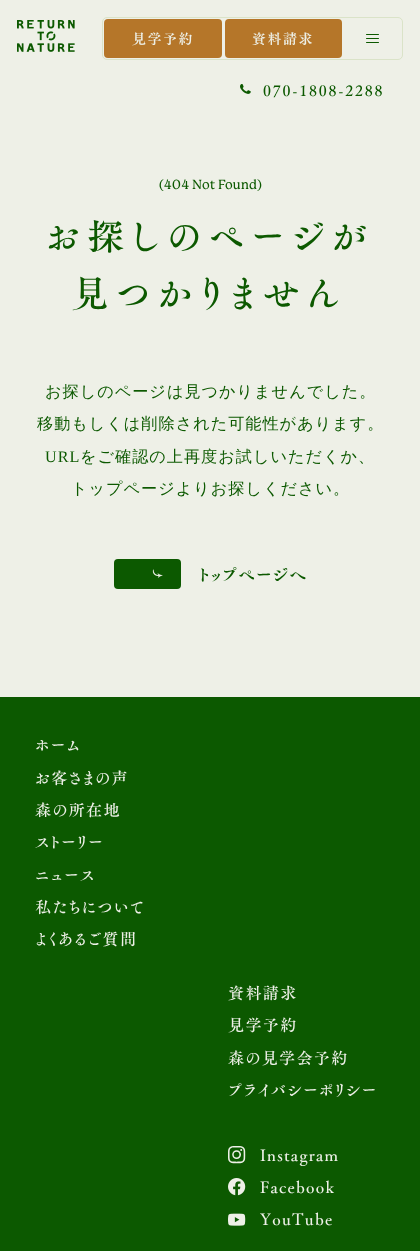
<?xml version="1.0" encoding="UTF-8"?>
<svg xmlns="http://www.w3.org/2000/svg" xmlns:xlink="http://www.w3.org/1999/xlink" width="420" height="1251">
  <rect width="100%" height="100%" fill="#eef0e7" />
  <image x="17" y="20" width="58" height="32" xlink:href="image1.png" />
  <rect x="102.5" y="17.5" width="300" height="42" rx="4.5" fill="none" stroke="#dae3c8" />
  <rect x="104" y="19" width="118" height="39" rx="4" fill="#b57629" />
  <rect x="225" y="19" width="117" height="39" rx="4" fill="#b57629" />
  <rect x="366" y="34" width="13" height="1" rx="0.5" fill="#0c5900" />
  <rect x="366" y="38" width="13" height="1" rx="0.5" fill="#0c5900" />
  <rect x="366" y="42" width="13" height="1" rx="0.5" fill="#0c5900" />
  <image x="240" y="84" width="11" height="10" xlink:href="image2.png" />
  <rect x="114" y="559" width="67" height="30" rx="4" fill="#0c5900" />
  <image x="152" y="569" width="11" height="9" xlink:href="image3.png" />
  <rect y="697" width="420" height="554" fill="#0c5900" />
  <image x="228" y="1146" width="18" height="18" xlink:href="image4.png" />
  <image x="228" y="1178" width="18" height="18" xlink:href="image5.png" />
  <image x="228" y="1213" width="18" height="13" xlink:href="image6.png" />
  <text x="132" y="44" style="font-family: 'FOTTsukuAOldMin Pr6'; font-size: 14px; font-weight: bold; letter-spacing: 1.5px; fill: #eef0e7">見学予約</text>
  <text x="252" y="44" style="font-family: 'FOTTsukuAOldMin Pr6'; font-size: 14px; font-weight: bold; letter-spacing: 1.5px; fill: #eef0e7">資料請求</text>
  <text x="263" y="96" style="font-family: 'FOTTsukuAOldMin Pr6'; font-size: 15px; font-weight: 500; letter-spacing: 1.75px; fill: #0c5900">070-1808-2288</text>
  <text x="159" y="189" style="font-family: 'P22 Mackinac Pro'; font-size: 13px; font-weight: 500; fill: #0c5900">(404 Not Found)</text>
  <text x="46" y="250" style="font-family: 'FOTTsukuAOldMin Pr6'; font-size: 36.6px; font-weight: 600; letter-spacing: 7.25px; fill: #0c5900">お探しのページが</text>
  <text x="72" y="307" style="font-family: 'FOTTsukuAOldMin Pr6'; font-size: 36.6px; font-weight: 600; letter-spacing: 7.25px; fill: #0c5900">見つかりません</text>
  <text x="45" y="397" style="font-family: WenQuanYi Zen Hei; font-size: 16.15px; font-weight: 500; letter-spacing: 1px; fill: #0c5900">お探しのページは見つかりませんでした。</text>
  <text x="37" y="429" style="font-family: WenQuanYi Zen Hei; font-size: 16.15px; font-weight: 500; letter-spacing: 1px; fill: #0c5900">移動もしくは削除された可能性があります。</text>
  <text x="45" y="462" style="font-family: Liberation Serif; font-size: 16.15px; letter-spacing: 1px; fill: #0c5900">URL</text>
  <text x="80" y="462" style="font-family: WenQuanYi Zen Hei; font-size: 16.15px; font-weight: 500; letter-spacing: 1px; fill: #0c5900">をご確認の上再度お試しいただくか、</text>
  <text x="71" y="494" style="font-family: WenQuanYi Zen Hei; font-size: 16.15px; font-weight: 500; letter-spacing: 1px; fill: #0c5900">トップページよりお探しください。</text>
  <text x="200" y="581" style="font-family: 'FOTTsukuAOldMin Pr6'; font-size: 17.25px; font-weight: bold; letter-spacing: 1.5px; fill: #0c5900">トップページへ</text>
  <text x="35" y="751" style="font-family: 'FOTTsukuAOldMin Pr6'; font-size: 16.15px; font-weight: 600; letter-spacing: 1.25px; fill: #eef0e7">ホーム</text>
  <text x="35" y="784" style="font-family: 'FOTTsukuAOldMin Pr6'; font-size: 16.15px; font-weight: 600; letter-spacing: 1.25px; fill: #eef0e7">お客さまの声</text>
  <text x="35" y="816" style="font-family: 'FOTTsukuAOldMin Pr6'; font-size: 16.15px; font-weight: 600; letter-spacing: 1.25px; fill: #eef0e7">森の所在地</text>
  <text x="35" y="848" style="font-family: 'FOTTsukuAOldMin Pr6'; font-size: 16.15px; font-weight: 600; letter-spacing: 1.25px; fill: #eef0e7">ストーリー</text>
  <text x="35" y="881" style="font-family: 'FOTTsukuAOldMin Pr6'; font-size: 16.15px; font-weight: 600; letter-spacing: 1.25px; fill: #eef0e7">ニュース</text>
  <text x="35" y="913" style="font-family: 'FOTTsukuAOldMin Pr6'; font-size: 16.15px; font-weight: 600; letter-spacing: 1.25px; fill: #eef0e7">私たちについて</text>
  <text x="35" y="945" style="font-family: 'FOTTsukuAOldMin Pr6'; font-size: 16.15px; font-weight: 600; letter-spacing: 1.25px; fill: #eef0e7">よくあるご質問</text>
  <text x="228" y="999" style="font-family: 'FOTTsukuAOldMin Pr6'; font-size: 16.15px; font-weight: 600; letter-spacing: 1.25px; fill: #eef0e7">資料請求</text>
  <text x="228" y="1031" style="font-family: 'FOTTsukuAOldMin Pr6'; font-size: 16.15px; font-weight: 600; letter-spacing: 1.25px; fill: #eef0e7">見学予約</text>
  <text x="228" y="1064" style="font-family: 'FOTTsukuAOldMin Pr6'; font-size: 16.15px; font-weight: 600; letter-spacing: 1.25px; fill: #eef0e7">森の見学会予約</text>
  <text x="228" y="1096" style="font-family: 'FOTTsukuAOldMin Pr6'; font-size: 16.15px; font-weight: 600; letter-spacing: 1.25px; fill: #eef0e7">プライバシーポリシー</text>
  <text x="260" y="1161" style="font-family: 'FOTTsukuAOldMin Pr6'; font-size: 16.15px; font-weight: 500; letter-spacing: 1.25px; fill: #eef0e7">Instagram</text>
  <text x="260" y="1193" style="font-family: 'FOTTsukuAOldMin Pr6'; font-size: 16.15px; font-weight: 500; letter-spacing: 1.25px; fill: #eef0e7">Facebook</text>
  <text x="260" y="1225" style="font-family: 'FOTTsukuAOldMin Pr6'; font-size: 16.15px; font-weight: 500; letter-spacing: 1.25px; fill: #eef0e7">YouTube</text>
</svg>
